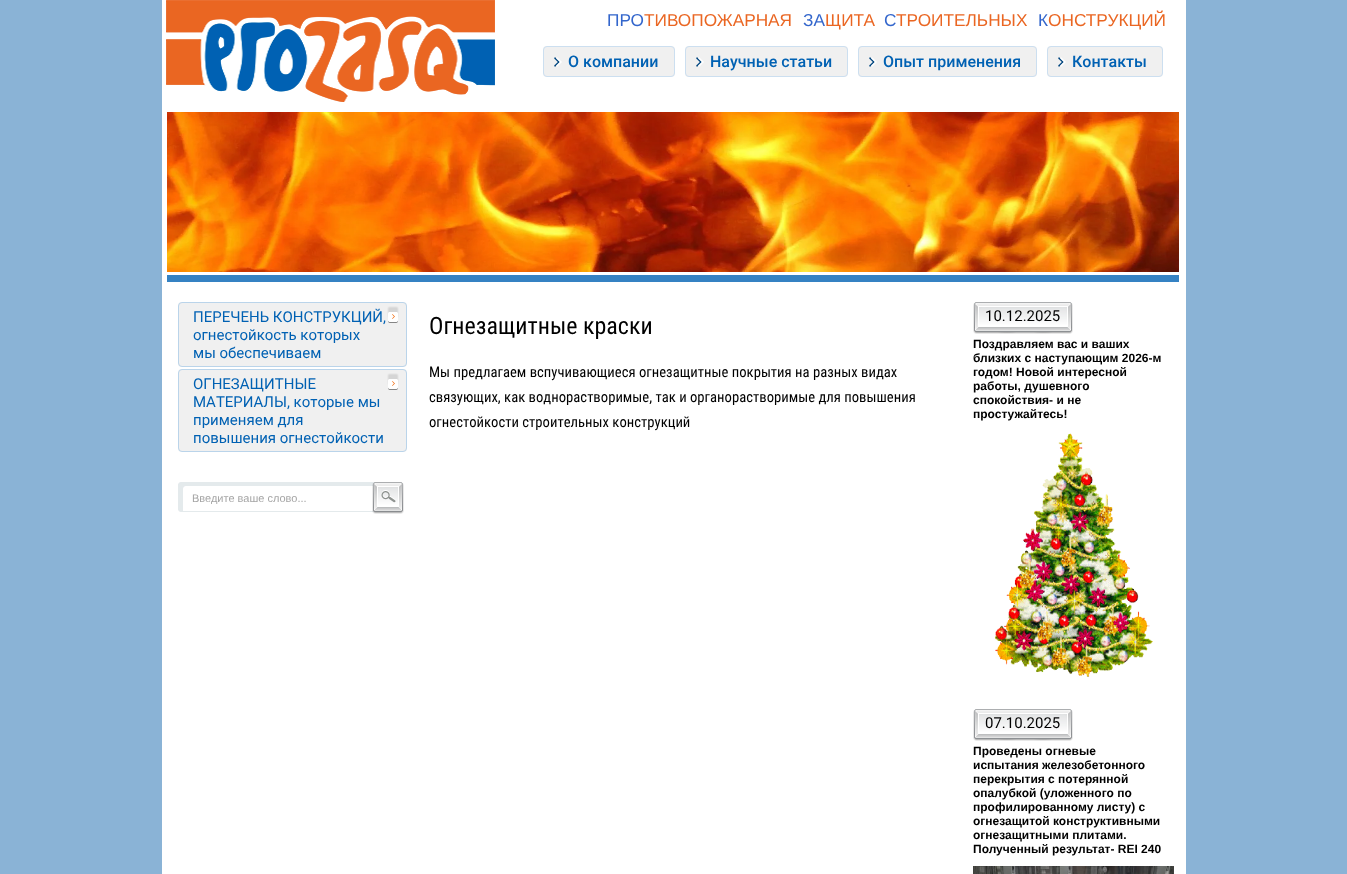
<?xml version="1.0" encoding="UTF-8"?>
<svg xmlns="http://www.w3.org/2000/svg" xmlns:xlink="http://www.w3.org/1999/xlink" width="1347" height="874">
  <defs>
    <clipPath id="clip1"><rect x="192" y="492" width="180" height="12" /></clipPath>
  </defs>
  <rect width="100%" height="100%" fill="#8ab3d6" />
  <rect x="162" width="1024" height="874" fill="#ffffff" />
  <image x="166" y="0" width="329" height="102" xlink:href="image1.png" />
  <rect x="543" y="46" width="132" height="31" rx="4" fill="#f0f0f0" />
  <image x="554" y="57" width="8" height="10" xlink:href="image2.png" />
  <rect x="543.5" y="46.5" width="131" height="30" rx="3.5" fill="none" stroke="#ccdff0" />
  <rect x="685" y="46" width="163" height="31" rx="4" fill="#f0f0f0" />
  <image x="696" y="57" width="8" height="10" xlink:href="image2.png" />
  <rect x="685.5" y="46.5" width="162" height="30" rx="3.5" fill="none" stroke="#ccdff0" />
  <rect x="858" y="46" width="179" height="31" rx="4" fill="#f0f0f0" />
  <image x="869" y="57" width="8" height="10" xlink:href="image2.png" />
  <rect x="858.5" y="46.5" width="178" height="30" rx="3.5" fill="none" stroke="#ccdff0" />
  <rect x="1047" y="46" width="116" height="31" rx="4" fill="#f0f0f0" />
  <image x="1058" y="57" width="8" height="10" xlink:href="image2.png" />
  <rect x="1047.5" y="46.5" width="115" height="30" rx="3.5" fill="none" stroke="#ccdff0" />
  <rect x="167" y="275" width="1012" height="7" fill="#3582c3" />
  <image x="167" y="112" width="1012" height="160" xlink:href="image3.png" />
  <rect x="178" y="302" width="229" height="65" rx="4" fill="#f0f0f0" />
  <image x="387" y="306" width="12" height="17" xlink:href="image4.png" />
  <rect x="178.5" y="302.5" width="228" height="64" rx="3.5" fill="none" stroke="#bad4ea" />
  <rect x="178" y="369" width="229" height="83" rx="4" fill="#f0f0f0" />
  <image x="387" y="373" width="12" height="17" xlink:href="image4.png" />
  <rect x="178.5" y="369.5" width="228" height="82" rx="3.5" fill="none" stroke="#bad4ea" />
  <image x="178" y="482" width="226" height="32" xlink:href="image5.png" />
  <image x="973" y="302" width="100" height="32" xlink:href="image6.png" />
  <image x="994" y="433" width="159" height="245" xlink:href="image7.png" />
  <image x="973" y="709" width="100" height="32" xlink:href="image6.png" />
  <image x="973" y="866" width="201" height="8" xlink:href="image8.png" />
  <text x="607" y="26" style="font-family: Liberation Sans; font-size: 17.25px; fill: #3366cc">ПРО</text>
  <text x="644" y="26" style="font-family: Liberation Sans; font-size: 17.25px; fill: #ea6622">ТИВОПОЖАРНАЯ</text>
  <text x="803" y="26" style="font-family: Liberation Sans; font-size: 17.25px; fill: #3366cc">ЗА</text>
  <text x="825" y="26" style="font-family: Liberation Sans; font-size: 17.25px; fill: #ea6622">ЩИТА</text>
  <text x="884" y="26" style="font-family: Liberation Sans; font-size: 17.25px; fill: #3366cc">С</text>
  <text x="896" y="26" style="font-family: Liberation Sans; font-size: 17.25px; fill: #ea6622">ТРОИТЕЛЬНЫХ</text>
  <text x="1038" y="26" style="font-family: Liberation Sans; font-size: 17.25px; fill: #3366cc">К</text>
  <text x="1048" y="26" style="font-family: Liberation Sans; font-size: 17.25px; fill: #ea6622">ОНСТРУКЦИЙ</text>
  <text x="568" y="67" style="font-family: Roboto; font-size: 16px; font-weight: 500; fill: #0061b3">О компании</text>
  <text x="710" y="67" style="font-family: Roboto; font-size: 16px; font-weight: 500; fill: #0061b3">Научные статьи</text>
  <text x="883" y="67" style="font-family: Roboto; font-size: 16px; font-weight: 500; fill: #0061b3">Опыт применения</text>
  <text x="1072" y="67" style="font-family: Roboto; font-size: 16px; font-weight: 500; fill: #0061b3">Контакты</text>
  <text x="193" y="322" style="font-family: roboto; font-size: 15px; fill: #0061b3">ПЕРЕЧЕНЬ КОНСТРУКЦИЙ,</text>
  <text x="193" y="340" style="font-family: roboto; font-size: 15px; fill: #0061b3">огнестойкость которых</text>
  <text x="193" y="358" style="font-family: roboto; font-size: 15px; fill: #0061b3">мы обеспечиваем</text>
  <text x="193" y="389" style="font-family: roboto; font-size: 15px; fill: #0061b3">ОГНЕЗАЩИТНЫЕ</text>
  <text x="193" y="407" style="font-family: roboto; font-size: 15px; fill: #0061b3">МАТЕРИАЛЫ, которые мы</text>
  <text x="193" y="425" style="font-family: roboto; font-size: 15px; fill: #0061b3">применяем для</text>
  <text x="193" y="443" style="font-family: roboto; font-size: 15px; fill: #0061b3">повышения огнестойкости</text>
  <g clip-path="url(#clip1)">
    <text x="192" y="502" style="font-family: Liberation Sans; font-size: 11px; fill: #a5a5a5">Введите ваше слово...</text>
  </g>
  <text x="429" y="334" style="font-family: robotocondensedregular; font-size: 24px; fill: #000000">Огнезащитные краски</text>
  <text x="429" y="377" style="font-family: robotocondensedregular; font-size: 14.7px; fill: #000000">Мы предлагаем вспучивающиеся огнезащитные покрытия на разных видах</text>
  <text x="429" y="402" style="font-family: robotocondensedregular; font-size: 14.7px; fill: #000000">связующих, как воднорастворимые, так и органорастворимые для повышения</text>
  <text x="429" y="427" style="font-family: robotocondensedregular; font-size: 14.7px; fill: #000000">огнестойкости строительных конструкций</text>
  <text x="985" y="321" style="font-family: roboto; font-size: 15px; fill: #000000">10.12.2025</text>
  <text x="973" y="348" style="font-family: Liberation Sans; font-size: 12px; font-weight: bold; fill: #000000">Поздравляем вас и ваших</text>
  <text x="973" y="362" style="font-family: Liberation Sans; font-size: 12px; font-weight: bold; fill: #000000">близких с наступающим 2026-м</text>
  <text x="973" y="376" style="font-family: Liberation Sans; font-size: 12px; font-weight: bold; fill: #000000">годом! Новой интересной</text>
  <text x="973" y="390" style="font-family: Liberation Sans; font-size: 12px; font-weight: bold; fill: #000000">работы, душевного</text>
  <text x="973" y="404" style="font-family: Liberation Sans; font-size: 12px; font-weight: bold; fill: #000000">спокойствия- и не</text>
  <text x="973" y="418" style="font-family: Liberation Sans; font-size: 12px; font-weight: bold; fill: #000000">простужайтесь!</text>
  <text x="985" y="728" style="font-family: roboto; font-size: 15px; fill: #000000">07.10.2025</text>
  <text x="973" y="755" style="font-family: Liberation Sans; font-size: 12px; font-weight: bold; fill: #000000">Проведены огневые</text>
  <text x="973" y="769" style="font-family: Liberation Sans; font-size: 12px; font-weight: bold; fill: #000000">испытания железобетонного</text>
  <text x="973" y="783" style="font-family: Liberation Sans; font-size: 12px; font-weight: bold; fill: #000000">перекрытия с потерянной</text>
  <text x="973" y="797" style="font-family: Liberation Sans; font-size: 12px; font-weight: bold; fill: #000000">опалубкой (уложенного по</text>
  <text x="973" y="811" style="font-family: Liberation Sans; font-size: 12px; font-weight: bold; fill: #000000">профилированному листу) с</text>
  <text x="973" y="825" style="font-family: Liberation Sans; font-size: 12px; font-weight: bold; fill: #000000">огнезащитой конструктивными</text>
  <text x="973" y="839" style="font-family: Liberation Sans; font-size: 12px; font-weight: bold; fill: #000000">огнезащитными плитами.</text>
  <text x="973" y="853" style="font-family: Liberation Sans; font-size: 12px; font-weight: bold; fill: #000000">Полученный результат- REI 240</text>
</svg>
